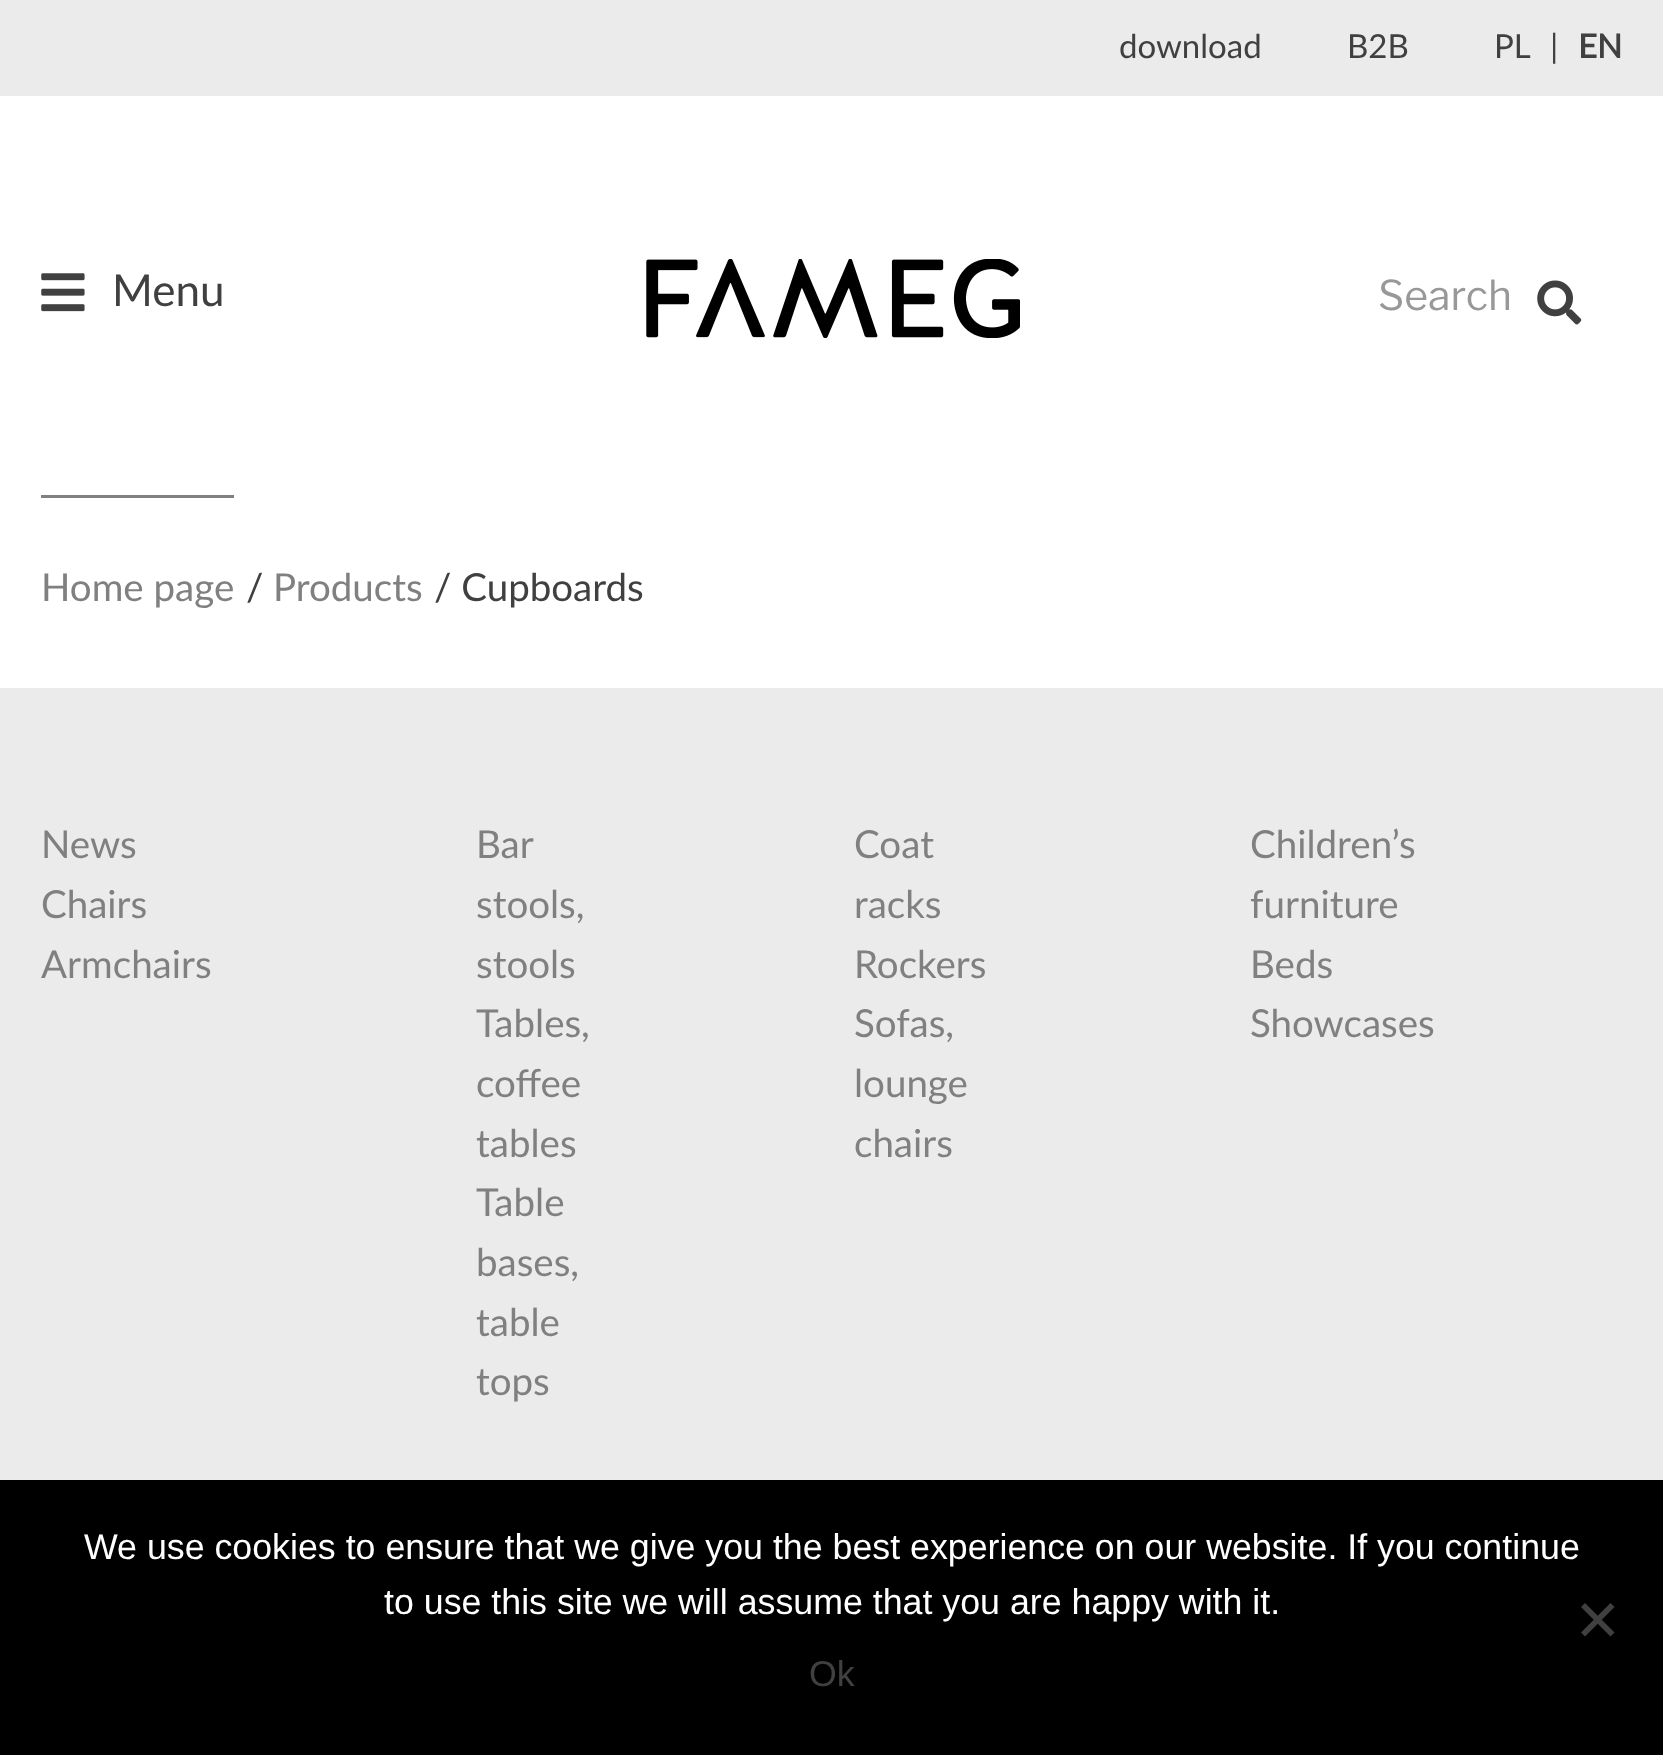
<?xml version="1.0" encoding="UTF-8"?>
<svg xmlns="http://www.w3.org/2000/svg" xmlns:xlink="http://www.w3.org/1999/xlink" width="1663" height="1755">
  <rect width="100%" height="100%" fill="#ffffff" />
  <rect width="1663" height="96" fill="#ebebeb" />
  <image x="41" y="273" width="44" height="39" xlink:href="image1.png" />
  <image x="646" y="259" width="374" height="79" xlink:href="image2.png" />
  <image x="1537" y="280" width="45" height="45" xlink:href="image3.png" />
  <rect x="41" y="495" width="193" height="3" fill="#808080" />
  <rect y="688" width="1663" height="792" fill="#ebebeb" />
  <rect y="1480" width="1663" height="275" fill="#000000" />
  <path d="M 1610.5 1603 l 4 4 l -29.5 29.5 l -4 -4 z" fill="#404040" />
  <path d="M 1581 1607 l 4 -4 l 29.5 29.5 l -4 4 z" fill="#404040" />
  <text x="1119" y="58" style="font-family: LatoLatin; font-size: 33px; fill: #404040">download</text>
  <text x="1347" y="58" style="font-family: LatoLatin; font-size: 33px; fill: #404040">B2B</text>
  <text x="1494" y="58" style="font-family: LatoLatin; font-size: 33px; fill: #404040">PL</text>
  <text x="1550" y="58" style="font-family: LatoLatin; font-size: 33px; fill: #404040">|</text>
  <text x="1578" y="58" style="font-family: LatoLatin; font-size: 33px; font-weight: bold; fill: #404040">EN</text>
  <text x="112" y="306" style="font-family: LatoLatin; font-size: 44px; fill: #404040">Menu</text>
  <text x="1378" y="310" style="font-family: Libre Franklin; font-size: 41px; font-weight: 100; fill: #989898">Search</text>
  <text x="41" y="601" style="font-family: LatoLatin; font-size: 38.5px; fill: #808080">Home page</text>
  <text x="246" y="601" style="font-family: LatoLatin; font-size: 38.5px; fill: #404040">/</text>
  <text x="273" y="601" style="font-family: LatoLatin; font-size: 38.5px; fill: #808080">Products</text>
  <text x="434" y="601" style="font-family: LatoLatin; font-size: 38.5px; fill: #404040">/ Cupboards</text>
  <text x="41" y="858" style="font-family: LatoLatin; font-size: 38.5px; fill: #808080">News</text>
  <text x="41" y="918" style="font-family: LatoLatin; font-size: 38.5px; fill: #808080">Chairs</text>
  <text x="41" y="978" style="font-family: LatoLatin; font-size: 38.5px; fill: #808080">Armchairs</text>
  <text x="476" y="858" style="font-family: LatoLatin; font-size: 38.5px; fill: #808080">Bar</text>
  <text x="476" y="918" style="font-family: LatoLatin; font-size: 38.5px; fill: #808080">stools,</text>
  <text x="476" y="978" style="font-family: LatoLatin; font-size: 38.5px; fill: #808080">stools</text>
  <text x="476" y="1037" style="font-family: LatoLatin; font-size: 38.5px; fill: #808080">Tables,</text>
  <text x="476" y="1097" style="font-family: LatoLatin; font-size: 38.5px; fill: #808080">coffee</text>
  <text x="476" y="1157" style="font-family: LatoLatin; font-size: 38.5px; fill: #808080">tables</text>
  <text x="476" y="1216" style="font-family: LatoLatin; font-size: 38.5px; fill: #808080">Table</text>
  <text x="476" y="1276" style="font-family: LatoLatin; font-size: 38.5px; fill: #808080">bases,</text>
  <text x="476" y="1336" style="font-family: LatoLatin; font-size: 38.5px; fill: #808080">table</text>
  <text x="476" y="1395" style="font-family: LatoLatin; font-size: 38.5px; fill: #808080">tops</text>
  <text x="854" y="858" style="font-family: LatoLatin; font-size: 38.5px; fill: #808080">Coat</text>
  <text x="854" y="918" style="font-family: LatoLatin; font-size: 38.5px; fill: #808080">racks</text>
  <text x="854" y="978" style="font-family: LatoLatin; font-size: 38.5px; fill: #808080">Rockers</text>
  <text x="854" y="1037" style="font-family: LatoLatin; font-size: 38.5px; fill: #808080">Sofas,</text>
  <text x="854" y="1097" style="font-family: LatoLatin; font-size: 38.5px; fill: #808080">lounge</text>
  <text x="854" y="1157" style="font-family: LatoLatin; font-size: 38.5px; fill: #808080">chairs</text>
  <text x="1250" y="858" style="font-family: LatoLatin; font-size: 38.5px; fill: #808080">Children’s</text>
  <text x="1250" y="918" style="font-family: LatoLatin; font-size: 38.5px; fill: #808080">furniture</text>
  <text x="1250" y="978" style="font-family: LatoLatin; font-size: 38.5px; fill: #808080">Beds</text>
  <text x="1250" y="1037" style="font-family: LatoLatin; font-size: 38.5px; fill: #808080">Showcases</text>
  <text x="84" y="1559" style="font-family: Liberation Sans; font-size: 35.75px; fill: #ffffff">We use cookies to ensure that we give you the best experience on our website. If you continue</text>
  <text x="384" y="1614" style="font-family: Liberation Sans; font-size: 35.75px; fill: #ffffff">to use this site we will assume that you are happy with it.</text>
  <text x="809" y="1686" style="font-family: Liberation Sans; font-size: 35.75px; fill: #404040">Ok</text>
</svg>
